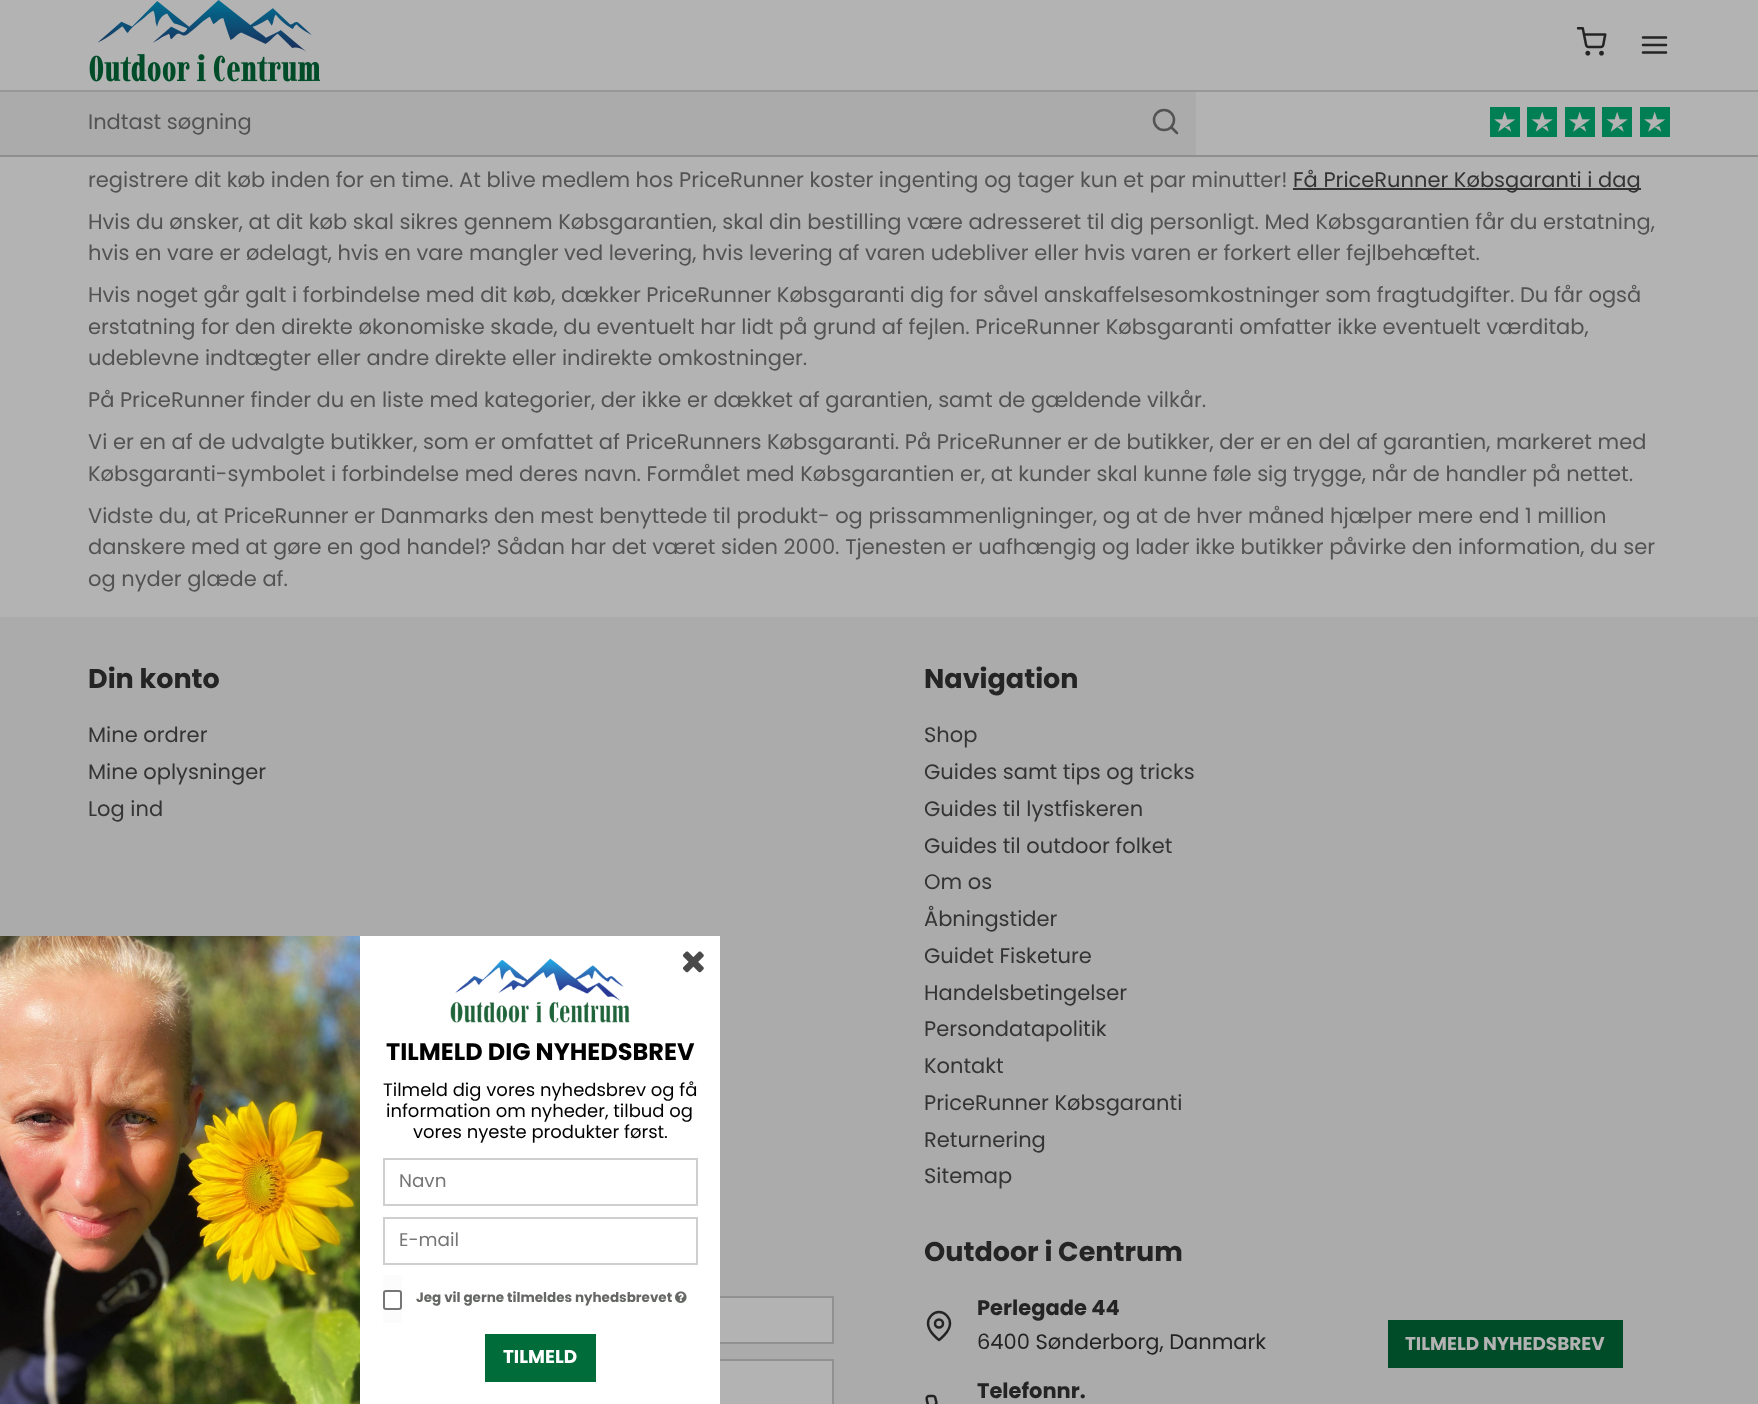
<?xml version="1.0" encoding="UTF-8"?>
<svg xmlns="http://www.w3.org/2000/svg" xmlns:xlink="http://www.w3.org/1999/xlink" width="1758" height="1404">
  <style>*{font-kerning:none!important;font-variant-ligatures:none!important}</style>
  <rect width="100%" height="100%" fill="#b3b3b3" />
  <rect y="90" width="1758" height="2" fill="#989898" />
  <image x="89" y="0" width="231" height="82" xlink:href="image1.png" />
  <image x="1577" y="27" width="30" height="29" xlink:href="image2.png" />
  <path d="M 1643 45 h 23 m -23 -7.5 h 23 m -23 15 h 23" fill="none" stroke="#242424" stroke-width="2.5" stroke-linecap="round" stroke-linejoin="round" />
  <rect y="155" width="1758" height="2" fill="#8f8f8f" />
  <rect y="92" width="1196" height="63" fill="#ababab" />
  <circle cx="1164" cy="120" r="10" fill="none" stroke="#535353" stroke-width="2.5" />
  <path d="M 1177 133 l -5.5 -5.5" fill="none" stroke="#535353" stroke-width="2.5" stroke-linecap="round" stroke-linejoin="round" />
  <image x="1490" y="107" width="30" height="30" xlink:href="image3.png" />
  <image x="1527" y="107" width="30" height="30" xlink:href="image4.png" />
  <image x="1565" y="107" width="30" height="30" xlink:href="image3.png" />
  <image x="1602" y="107" width="30" height="30" xlink:href="image4.png" />
  <image x="1640" y="107" width="30" height="30" xlink:href="image3.png" />
  <rect x="1293" y="188" width="348" height="2" fill="#343434" />
  <rect y="617" width="1758" height="787" fill="#ababab" />
  <rect x="720" y="1298" width="112" height="44" fill="#b3b3b3" />
  <rect x="90" y="1297" width="743" height="46" fill="none" stroke="#919191" stroke-width="2" />
  <rect x="720" y="1361" width="112" height="43" fill="#b3b3b3" />
  <rect x="90" y="1360" width="743" height="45" fill="none" stroke="#919191" stroke-width="2" />
  <path d="M 950 1323.5 c 0 8.5 -11 16.5 -11 16.5 c 0 0 -11 -8 -11 -16.5 c 0 -6 5 -11.5 11 -11.5 c 6 0 11 5.5 11 11.5 z" fill="none" stroke="#242424" stroke-width="2.5" stroke-linecap="round" stroke-linejoin="round" />
  <circle cx="939" cy="1323.5" r="4" fill="none" stroke="#242424" stroke-width="2.5" />
  <image x="925" y="1394" width="13" height="10" xlink:href="image5.png" />
  <rect x="360" y="936" width="360" height="468" fill="#ffffff" />
  <image x="682" y="951" width="22" height="22" xlink:href="image6.png" />
  <image x="0" y="936" width="360" height="468" xlink:href="image7.png" />
  <image x="450" y="958" width="180" height="65" xlink:href="image8.png" />
  <rect x="384" y="1159" width="313" height="46" fill="none" stroke="#cfcfcf" stroke-width="2" />
  <rect x="384" y="1218" width="313" height="46" fill="none" stroke="#cfcfcf" stroke-width="2" />
  <rect x="383" y="1275" width="19" height="48" fill="#fcfcfc" />
  <rect x="384" y="1291" width="17" height="18" rx="2" fill="#ffffff" stroke="#767676" stroke-width="2" />
  <image x="675" y="1291" width="12" height="12" xlink:href="image9.png" />
  <rect x="485" y="1334" width="111" height="48" fill="#006c39" />
  <rect x="1388" y="1320" width="235" height="48" fill="#004c28" />
  <text x="88" y="129" style="font-family: Poppins; font-size: 21px; fill: #535353">Indtast søgning</text>
  <text x="88" y="187" style="font-family: Poppins; font-size: 21px; fill: #535353">registrere dit køb inden for en time. At blive medlem hos PriceRunner koster ingenting og tager kun et par minutter!</text>
  <text x="1293" y="187" style="font-family: Poppins; font-size: 21px; fill: #343434">Få PriceRunner Købsgaranti i dag</text>
  <text x="88" y="229" style="font-family: Poppins; font-size: 21px; fill: #535353">Hvis du ønsker, at dit køb skal sikres gennem Købsgarantien, skal din bestilling være adresseret til dig personligt. Med Købsgarantien får du erstatning,</text>
  <text x="88" y="260" style="font-family: Poppins; font-size: 21px; fill: #535353">hvis en vare er ødelagt, hvis en vare mangler ved levering, hvis levering af varen udebliver eller hvis varen er forkert eller fejlbehæftet.</text>
  <text x="88" y="302" style="font-family: Poppins; font-size: 21px; fill: #535353">Hvis noget går galt i forbindelse med dit køb, dækker PriceRunner Købsgaranti dig for såvel anskaffelsesomkostninger som fragtudgifter. Du får også</text>
  <text x="88" y="334" style="font-family: Poppins; font-size: 21px; fill: #535353">erstatning for den direkte økonomiske skade, du eventuelt har lidt på grund af fejlen. PriceRunner Købsgaranti omfatter ikke eventuelt værditab,</text>
  <text x="88" y="365" style="font-family: Poppins; font-size: 21px; fill: #535353">udeblevne indtægter eller andre direkte eller indirekte omkostninger.</text>
  <text x="88" y="407" style="font-family: Poppins; font-size: 21px; fill: #535353">På PriceRunner finder du en liste med kategorier, der ikke er dækket af garantien, samt de gældende vilkår.</text>
  <text x="88" y="449" style="font-family: Poppins; font-size: 21px; fill: #535353">Vi er en af de udvalgte butikker, som er omfattet af PriceRunners Købsgaranti. På PriceRunner er de butikker, der er en del af garantien, markeret med</text>
  <text x="88" y="481" style="font-family: Poppins; font-size: 21px; fill: #535353">Købsgaranti-symbolet i forbindelse med deres navn. Formålet med Købsgarantien er, at kunder skal kunne føle sig trygge, når de handler på nettet.</text>
  <text x="88" y="523" style="font-family: Poppins; font-size: 21px; fill: #535353">Vidste du, at PriceRunner er Danmarks den mest benyttede til produkt- og prissammenligninger, og at de hver måned hjælper mere end 1 million</text>
  <text x="88" y="554" style="font-family: Poppins; font-size: 21px; fill: #535353">danskere med at gøre en god handel? Sådan har det været siden 2000. Tjenesten er uafhængig og lader ikke butikker påvirke den information, du ser</text>
  <text x="88" y="586" style="font-family: Poppins; font-size: 21px; fill: #535353">og nyder glæde af.</text>
  <text x="88" y="688" style="font-family: Poppins; font-size: 27px; font-weight: bold; fill: #242424">Din konto</text>
  <text x="88" y="742" style="font-family: Poppins; font-size: 21px; fill: #343434">Mine ordrer</text>
  <text x="88" y="779" style="font-family: Poppins; font-size: 21px; fill: #343434">Mine oplysninger</text>
  <text x="88" y="816" style="font-family: Poppins; font-size: 21px; fill: #343434">Log ind</text>
  <text x="924" y="688" style="font-family: Poppins; font-size: 27px; font-weight: bold; fill: #242424">Navigation</text>
  <text x="924" y="742" style="font-family: Poppins; font-size: 21px; fill: #343434">Shop</text>
  <text x="924" y="779" style="font-family: Poppins; font-size: 21px; fill: #343434">Guides samt tips og tricks</text>
  <text x="924" y="816" style="font-family: Poppins; font-size: 21px; fill: #343434">Guides til lystfiskeren</text>
  <text x="924" y="853" style="font-family: Poppins; font-size: 21px; fill: #343434">Guides til outdoor folket</text>
  <text x="924" y="889" style="font-family: Poppins; font-size: 21px; fill: #343434">Om os</text>
  <text x="924" y="926" style="font-family: Poppins; font-size: 21px; fill: #343434">Åbningstider</text>
  <text x="924" y="963" style="font-family: Poppins; font-size: 21px; fill: #343434">Guidet Fisketure</text>
  <text x="924" y="1000" style="font-family: Poppins; font-size: 21px; fill: #343434">Handelsbetingelser</text>
  <text x="924" y="1036" style="font-family: Poppins; font-size: 21px; fill: #343434">Persondatapolitik</text>
  <text x="924" y="1073" style="font-family: Poppins; font-size: 21px; fill: #343434">Kontakt</text>
  <text x="924" y="1110" style="font-family: Poppins; font-size: 21px; fill: #343434">PriceRunner Købsgaranti</text>
  <text x="924" y="1147" style="font-family: Poppins; font-size: 21px; fill: #343434">Returnering</text>
  <text x="924" y="1183" style="font-family: Poppins; font-size: 21px; fill: #343434">Sitemap</text>
  <text x="924" y="1261" style="font-family: Poppins; font-size: 27px; font-weight: bold; fill: #242424">Outdoor i Centrum</text>
  <text x="977" y="1315" style="font-family: Poppins; font-size: 21px; font-weight: bold; fill: #242424">Perlegade 44</text>
  <text x="977" y="1349" style="font-family: Poppins; font-size: 21px; fill: #242424">6400 Sønderborg, Danmark</text>
  <text x="977" y="1398" style="font-family: Poppins; font-size: 21px; font-weight: bold; fill: #242424">Telefonnr.</text>
  <text x="386" y="1060" style="font-family: Poppins; font-size: 24px; font-weight: bold; fill: #000000">TILMELD DIG NYHEDSBREV</text>
  <text x="383" y="1096" style="font-family: Poppins; font-size: 18px; fill: #000000">Tilmeld dig vores nyhedsbrev og få</text>
  <text x="386" y="1117" style="font-family: Poppins; font-size: 18px; fill: #000000">information om nyheder, tilbud og</text>
  <text x="413" y="1138" style="font-family: Poppins; font-size: 18px; fill: #000000">vores nyeste produkter først.</text>
  <text x="399" y="1187" style="font-family: Poppins; font-size: 18.4px; fill: #757575">Navn</text>
  <text x="399" y="1246" style="font-family: Poppins; font-size: 18.4px; fill: #757575">E-mail</text>
  <text x="416" y="1302" style="font-family: Poppins; font-size: 13.5px; font-weight: bold; fill: #656764">Jeg vil gerne tilmeldes nyhedsbrevet</text>
  <text x="503" y="1363" style="font-family: Poppins; font-size: 18.4px; font-weight: bold; fill: #ffffff">TILMELD</text>
  <text x="1405" y="1350" style="font-family: Poppins; font-size: 18.4px; font-weight: bold; fill: #b3b3b3">TILMELD NYHEDSBREV</text>
</svg>
